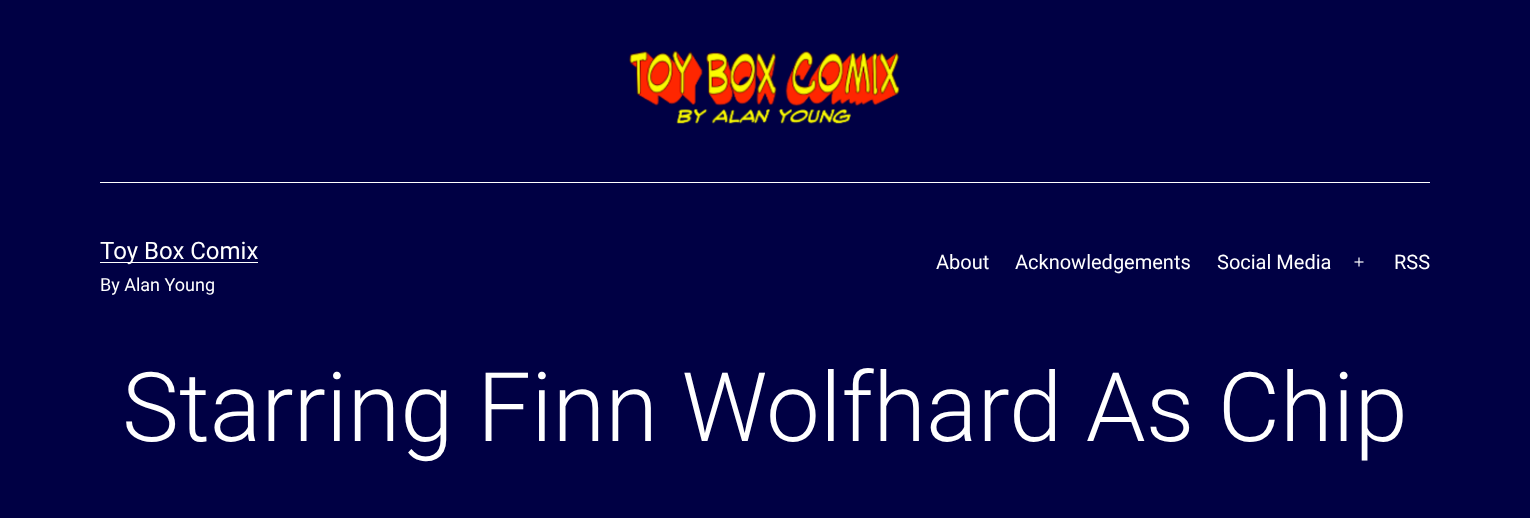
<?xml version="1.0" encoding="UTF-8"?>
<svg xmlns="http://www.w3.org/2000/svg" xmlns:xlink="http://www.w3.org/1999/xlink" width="1530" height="518">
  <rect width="100%" height="100%" fill="#000044" />
  <rect x="100" y="182" width="1330" height="1" fill="#ffffff" />
  <image x="629" y="50" width="271" height="74" xlink:href="image1.png" />
  <rect x="100" y="262" width="158" height="1" fill="#ffffff" />
  <image x="1354" y="257" width="10" height="10" xlink:href="image2.png" />
  <text x="100" y="259" style="font-family: Roboto; font-size: 24px; fill: #ffffff">Toy Box Comix</text>
  <text x="100" y="291" style="font-family: Roboto; font-size: 18px; fill: #ffffff">By Alan Young</text>
  <text x="936" y="269" style="font-family: Roboto; font-size: 20px; fill: #ffffff">About</text>
  <text x="1015" y="269" style="font-family: Roboto; font-size: 20px; fill: #ffffff">Acknowledgements</text>
  <text x="1217" y="269" style="font-family: Roboto; font-size: 20px; fill: #ffffff">Social Media</text>
  <text x="1394" y="269" style="font-family: Roboto; font-size: 20px; fill: #ffffff">RSS</text>
  <text x="122" y="441" style="font-family: Roboto; font-size: 96px; font-weight: 300; fill: #ffffff">Starring Finn Wolfhard As Chip</text>
</svg>
